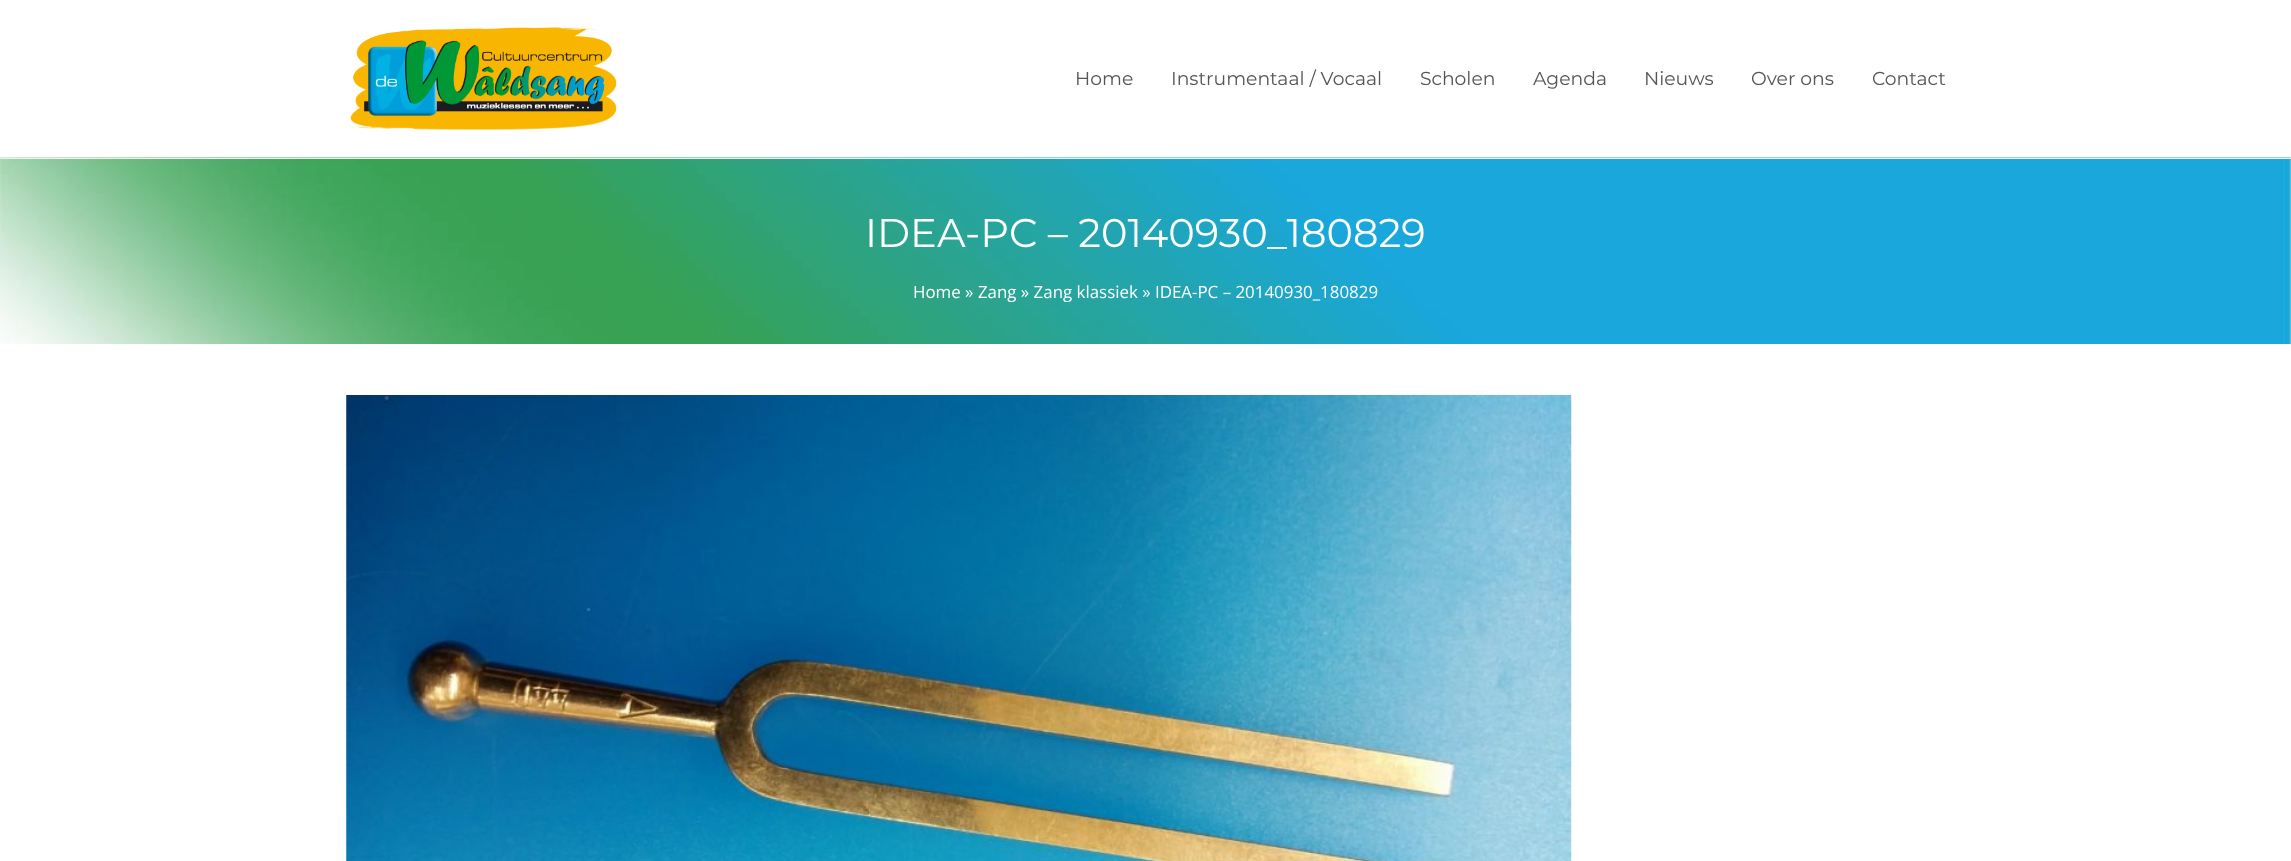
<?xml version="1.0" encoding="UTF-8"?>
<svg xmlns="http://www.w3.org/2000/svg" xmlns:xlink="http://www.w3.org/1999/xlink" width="2291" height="861">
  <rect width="100%" height="100%" fill="#ffffff" />
  <image x="350" y="27" width="267" height="103" xlink:href="image1.png" />
  <image x="0" y="157" width="2291" height="187" xlink:href="image2.png" />
  <rect y="158" width="2291" height="1" fill="#eeeeee" />
  <image x="346" y="395" width="1226" height="466" xlink:href="image3.png" />
  <text x="1075" y="85" style="font-family: Montserrat; font-size: 18.75px; fill: #555555">Home</text>
  <text x="1171" y="85" style="font-family: Montserrat; font-size: 18.75px; fill: #555555">Instrumentaal / Vocaal</text>
  <text x="1420" y="85" style="font-family: Montserrat; font-size: 18.75px; fill: #555555">Scholen</text>
  <text x="1533" y="85" style="font-family: Montserrat; font-size: 18.75px; fill: #555555">Agenda</text>
  <text x="1644" y="85" style="font-family: Montserrat; font-size: 18.75px; fill: #555555">Nieuws</text>
  <text x="1751" y="85" style="font-family: Montserrat; font-size: 18.75px; fill: #555555">Over ons</text>
  <text x="1872" y="85" style="font-family: Montserrat; font-size: 18.75px; fill: #555555">Contact</text>
  <text x="865" y="247" style="font-family: Montserrat; font-size: 40px; fill: #ffffff">IDEA-PC – 20140930_180829</text>
  <text x="913" y="298" style="font-family: Open Sans; font-size: 16.9px; fill: #ffffff">Home » Zang » Zang klassiek » IDEA-PC – 20140930_180829</text>
</svg>
